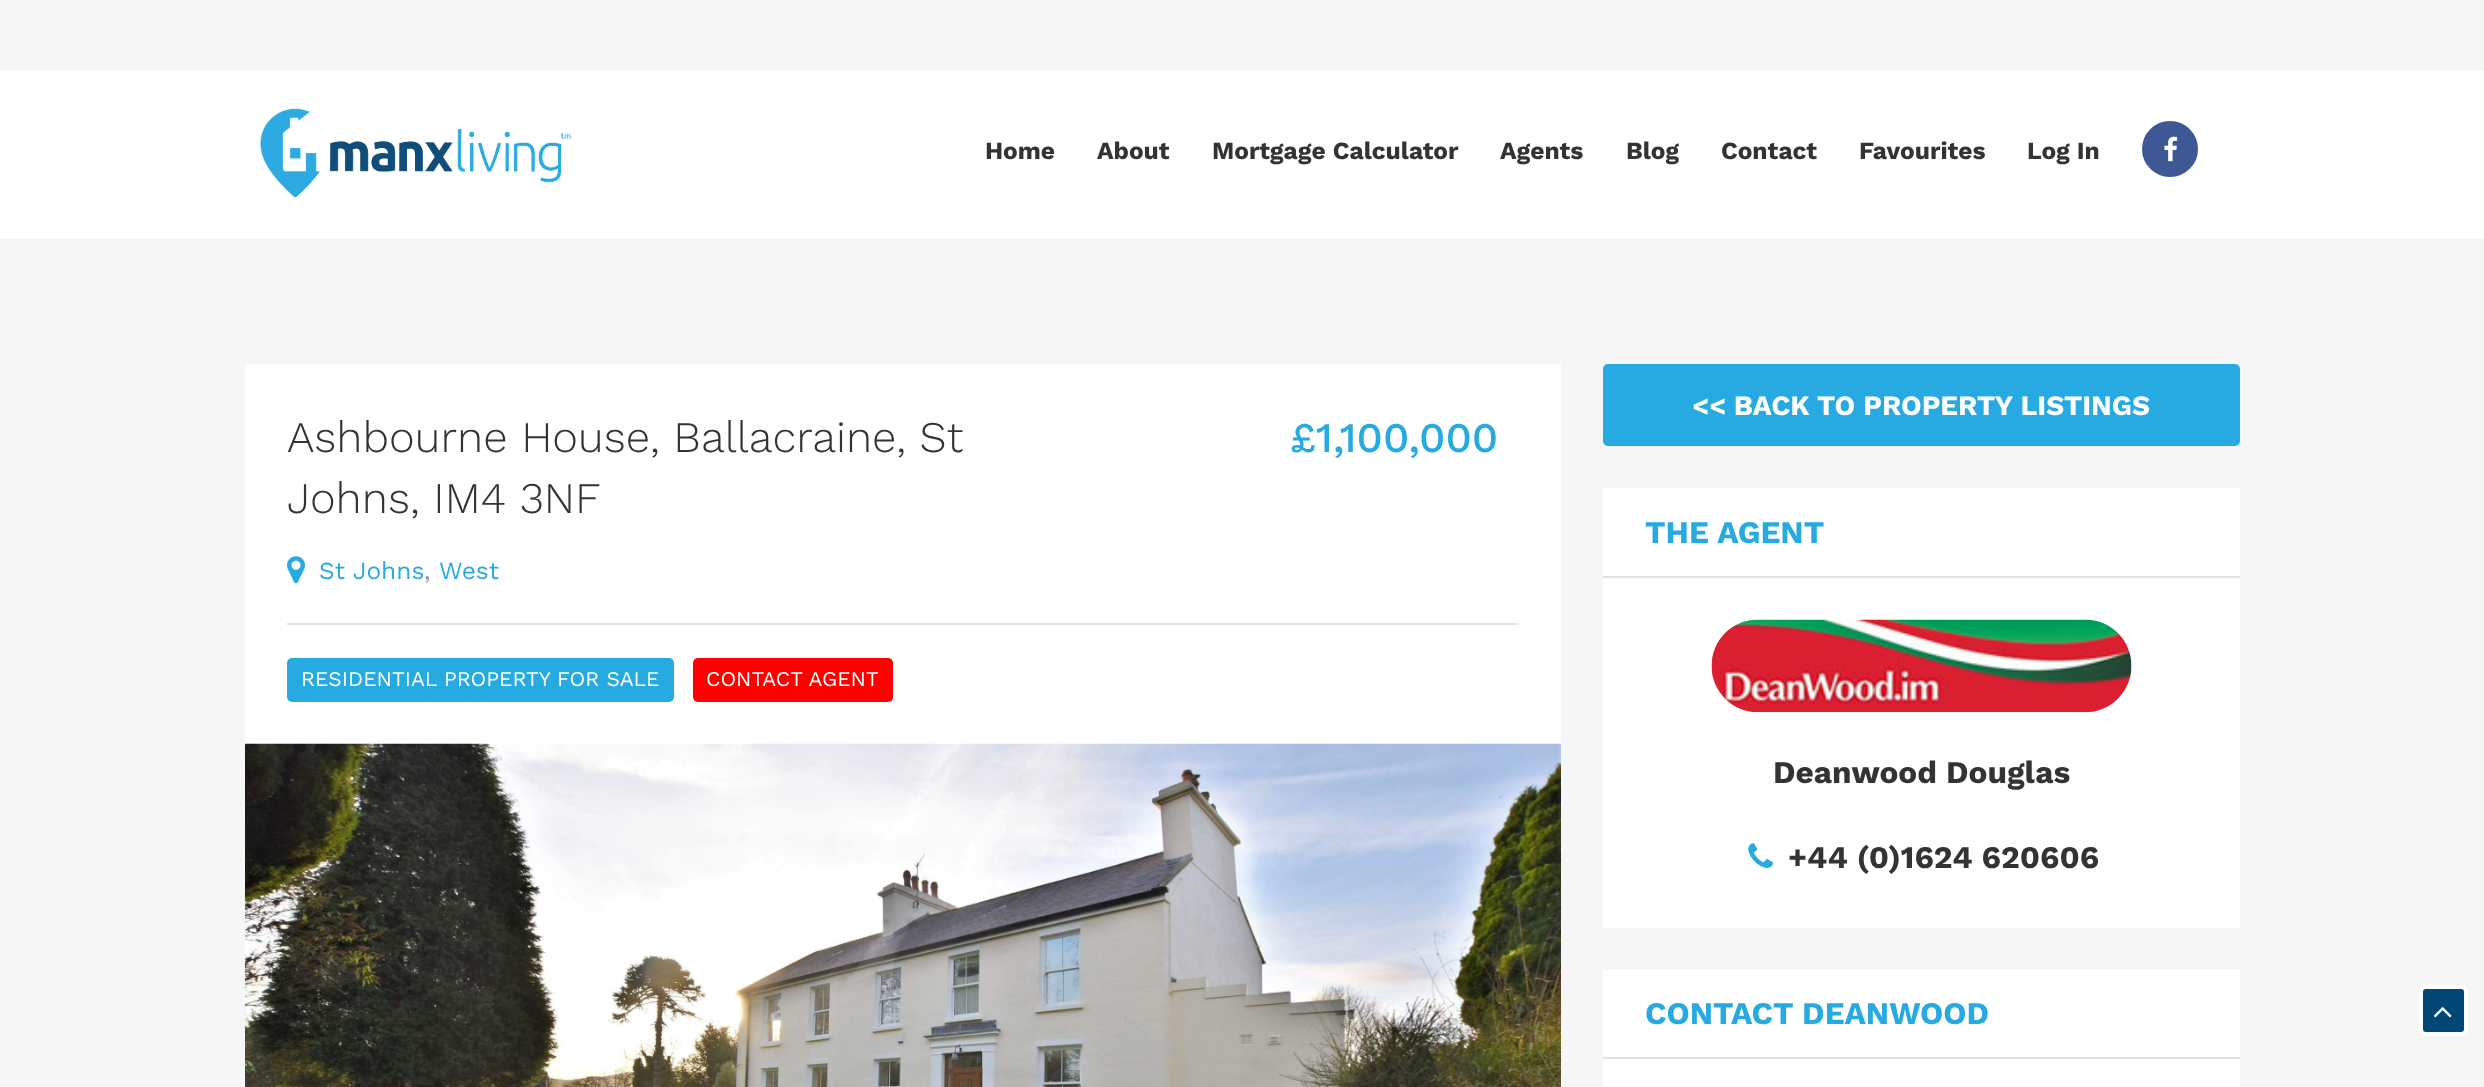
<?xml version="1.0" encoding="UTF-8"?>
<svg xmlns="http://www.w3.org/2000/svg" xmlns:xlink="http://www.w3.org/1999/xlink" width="2484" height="1087">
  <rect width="100%" height="100%" fill="#f6f6f6" />
  <rect y="70" width="2484" height="168" fill="#ffffff" />
  <image x="260" y="108" width="311" height="90" xlink:href="image1.png" />
  <circle cx="2170" cy="149" r="27" fill="#3d5895" stroke="#3d5895" stroke-width="2" />
  <image x="2164" y="136" width="14" height="26" xlink:href="image2.png" />
  <rect x="245" y="364" width="1316" height="380" fill="#ffffff" />
  <rect x="287" y="623" width="1232" height="2" fill="#e3e3e3" />
  <image x="287" y="556" width="18" height="28" xlink:href="image3.png" />
  <rect x="287" y="658" width="387" height="44" rx="5" fill="#27aae1" />
  <rect x="693" y="658" width="200" height="44" rx="5" fill="#ff0000" />
  <image x="245" y="743" width="1316" height="344" xlink:href="image4.png" />
  <rect x="1603" y="364" width="637" height="82" rx="5" fill="#27aae1" />
  <rect x="1603" y="488" width="637" height="440" fill="#ffffff" />
  <rect x="1603" y="576" width="637" height="2" fill="#e1e1e1" />
  <image x="1711" y="619" width="421" height="94" xlink:href="image5.png" />
  <image x="1748" y="843" width="25" height="25" xlink:href="image6.png" />
  <rect x="1603" y="970" width="637" height="117" fill="#ffffff" />
  <rect x="1603" y="1057" width="637" height="2" fill="#e1e1e1" />
  <rect x="2421" y="987" width="45" height="47" rx="5" fill="#004776" stroke="#ffffff" stroke-width="4" />
  <image x="2433" y="1007" width="19" height="11" xlink:href="image7.png" />
  <text x="985" y="159" style="font-family: Work Sans; font-size: 24.5px; font-weight: bold; fill: #333333">Home</text>
  <text x="1097" y="159" style="font-family: Work Sans; font-size: 24.5px; font-weight: bold; fill: #333333">About</text>
  <text x="1212" y="159" style="font-family: Work Sans; font-size: 24.5px; font-weight: bold; fill: #333333">Mortgage Calculator</text>
  <text x="1500" y="159" style="font-family: Work Sans; font-size: 24.5px; font-weight: bold; fill: #333333">Agents</text>
  <text x="1626" y="159" style="font-family: Work Sans; font-size: 24.5px; font-weight: bold; fill: #333333">Blog</text>
  <text x="1721" y="159" style="font-family: Work Sans; font-size: 24.5px; font-weight: bold; fill: #333333">Contact</text>
  <text x="1859" y="159" style="font-family: Work Sans; font-size: 24.5px; font-weight: bold; fill: #333333">Favourites</text>
  <text x="2027" y="159" style="font-family: Work Sans; font-size: 24.5px; font-weight: bold; fill: #333333">Log In</text>
  <text x="287" y="452" style="font-family: Work Sans; font-size: 43.75px; font-weight: 300; fill: #333333">Ashbourne House, Ballacraine, St</text>
  <text x="287" y="513" style="font-family: Work Sans; font-size: 43.75px; font-weight: 300; fill: #333333">Johns, IM4 3NF</text>
  <text x="1290" y="452" style="font-family: Work Sans; font-size: 42px; font-weight: 500; fill: #27aae1">£1,100,000</text>
  <text x="319" y="579" style="font-family: Work Sans; font-size: 24.5px; fill: #27aae1">St Johns</text>
  <text x="424" y="579" style="font-family: Work Sans; font-size: 24.5px; fill: #949494">,</text>
  <text x="439" y="579" style="font-family: Work Sans; font-size: 24.5px; fill: #27aae1">West</text>
  <text x="301" y="686" style="font-family: Work Sans; font-size: 21px; fill: #ffffff">RESIDENTIAL PROPERTY FOR SALE</text>
  <text x="706" y="686" style="font-family: Work Sans; font-size: 21px; fill: #ffffff">CONTACT AGENT</text>
  <text x="1692" y="415" style="font-family: Work Sans; font-size: 28px; font-weight: bold; fill: #ffffff">&lt;&lt; BACK TO PROPERTY LISTINGS</text>
  <text x="1645" y="543" style="font-family: Work Sans; font-size: 31.5px; font-weight: bold; fill: #27aae1">THE AGENT</text>
  <text x="1773" y="783" style="font-family: Work Sans; font-size: 31.5px; font-weight: bold; fill: #333333">Deanwood Douglas</text>
  <text x="1788" y="868" style="font-family: Work Sans; font-size: 31.5px; font-weight: bold; fill: #333333">+44 (0)1624 620606</text>
  <text x="1645" y="1024" style="font-family: Work Sans; font-size: 31.5px; font-weight: bold; fill: #27aae1">CONTACT DEANWOOD</text>
</svg>
